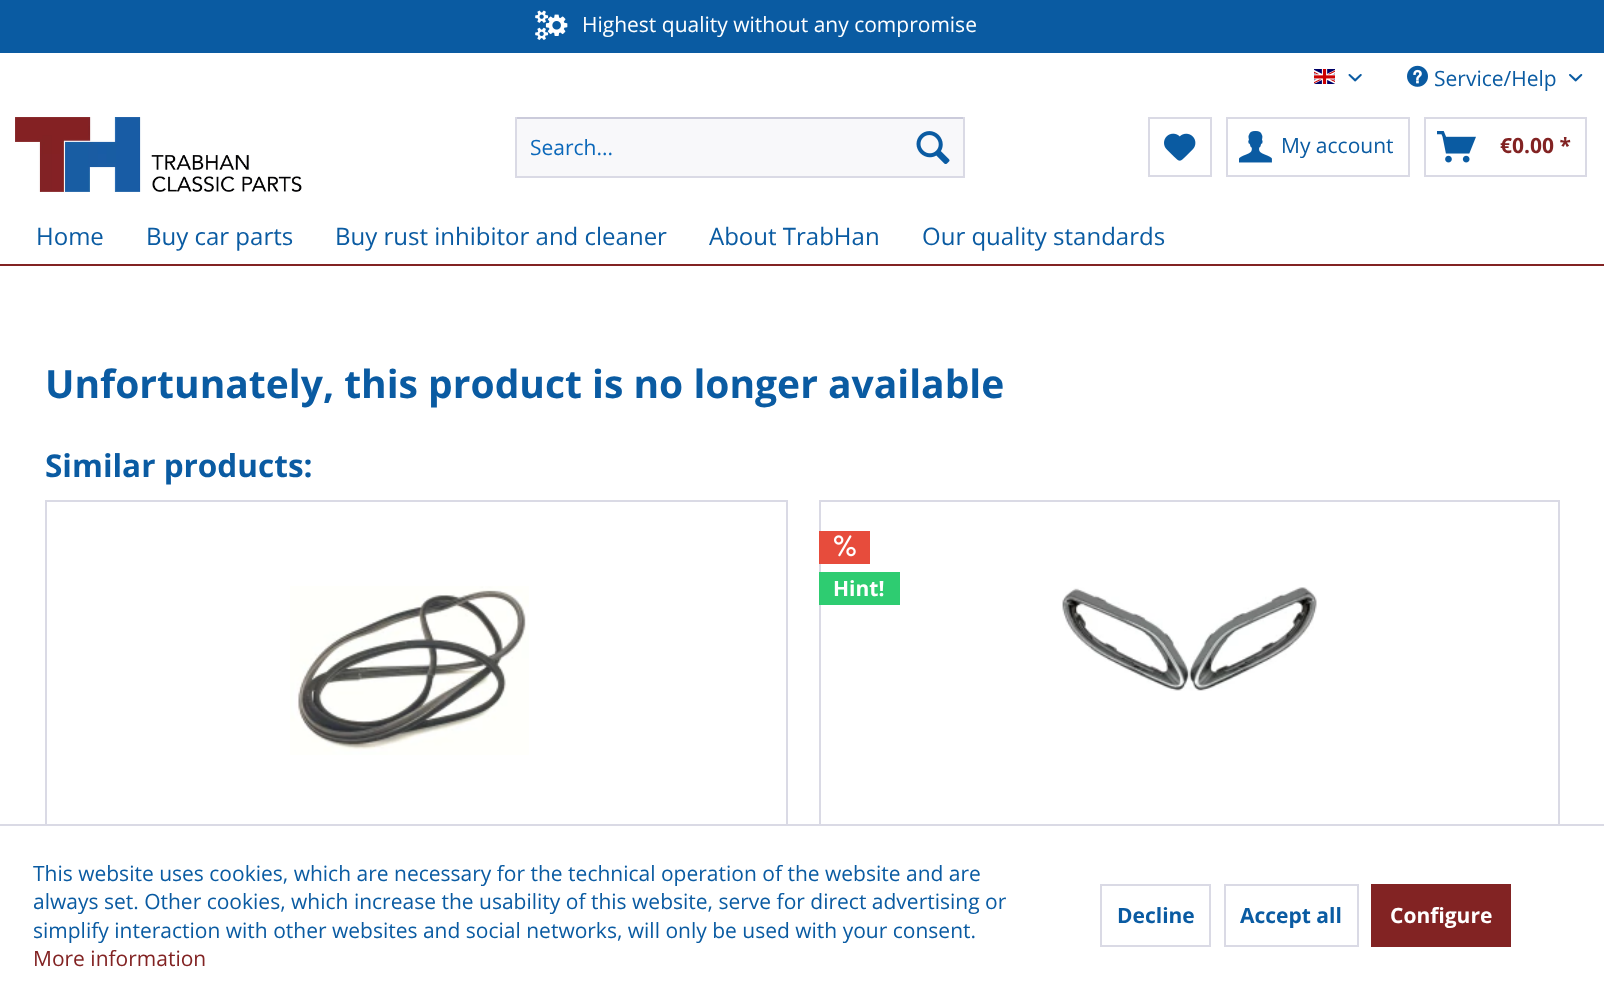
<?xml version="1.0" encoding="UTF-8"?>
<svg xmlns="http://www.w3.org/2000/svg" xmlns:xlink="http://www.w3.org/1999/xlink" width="1604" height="1005">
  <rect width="100%" height="100%" fill="#ffffff" />
  <rect width="1604" height="53" fill="#0a5ba2" />
  <image x="535" y="10" width="33" height="30" xlink:href="image1.png" />
  <image x="1314" y="69" width="21" height="15" xlink:href="image2.png" />
  <image x="1348" y="74" width="14" height="8" xlink:href="image3.png" />
  <image x="1407" y="65" width="21" height="22" xlink:href="image4.png" />
  <image x="1569" y="74" width="14" height="8" xlink:href="image5.png" />
  <image x="15" y="117" width="287" height="75" xlink:href="image6.png" />
  <rect x="517" y="119" width="446" height="57" fill="#f8f8fa" />
  <rect x="515" y="117" width="450" height="2" fill="#cbcbdb" />
  <rect x="963" y="117" width="2" height="60" fill="#dadae5" />
  <rect x="515" y="176" width="450" height="2" fill="#dadae5" />
  <rect x="515" y="117" width="2" height="60" fill="#dadae5" />
  <image x="916" y="131" width="34" height="33" xlink:href="image7.png" />
  <rect x="1149" y="118" width="62" height="58" fill="none" stroke="#dadae5" stroke-width="2" />
  <image x="1164" y="133" width="32" height="28" xlink:href="image8.png" />
  <rect x="1227" y="118" width="182" height="58" fill="none" stroke="#dadae5" stroke-width="2" />
  <image x="1239" y="131" width="33" height="32" xlink:href="image9.png" />
  <rect x="1425" y="118" width="161" height="58" fill="none" stroke="#dadae5" stroke-width="2" />
  <image x="1437" y="131" width="39" height="32" xlink:href="image10.png" />
  <rect y="264" width="1604" height="2" fill="#822323" />
  <rect x="46" y="501" width="741" height="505" fill="none" stroke="#dadae5" stroke-width="2" />
  <image x="290" y="586" width="239" height="169" xlink:href="image11.png" />
  <rect x="820" y="501" width="739" height="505" fill="none" stroke="#dadae5" stroke-width="2" />
  <rect x="819" y="531" width="51" height="33" fill="#e74c3c" />
  <image x="834" y="535" width="22" height="22" xlink:href="image12.png" />
  <rect x="819" y="572" width="81" height="33" fill="#2ecc71" />
  <image x="1062" y="587" width="255" height="104" xlink:href="image13.png" />
  <rect x="45" y="826" width="1515" height="179" fill="#ffffff" />
  <rect y="824" width="1604" height="2" fill="#dadae5" />
  <rect x="1101" y="885" width="109" height="61" fill="none" stroke="#dadae5" stroke-width="2" />
  <rect x="1225" y="885" width="133" height="61" fill="none" stroke="#dadae5" stroke-width="2" />
  <rect x="1371" y="884" width="140" height="63" fill="#822323" />
  <text x="582" y="32" style="font-family: Open Sans; font-size: 21px; fill: #ffffff">Highest quality without any compromise</text>
  <text x="1434" y="86" style="font-family: Open Sans; font-size: 21px; fill: #0a5ba2">Service/Help</text>
  <text x="530" y="155" style="font-family: Open Sans; font-size: 21px; fill: #0b68ba">Search...</text>
  <text x="1281" y="153" style="font-family: Open Sans; font-size: 21px; fill: #0a5ba2">My account</text>
  <text x="1500" y="153" style="font-family: Open Sans; font-size: 21px; font-weight: bold; fill: #822323">€0.00 *</text>
  <text x="36" y="245" style="font-family: Open Sans; font-size: 24px; fill: #0a5ba2">Home</text>
  <text x="146" y="245" style="font-family: Open Sans; font-size: 24px; fill: #0a5ba2">Buy car parts</text>
  <text x="335" y="245" style="font-family: Open Sans; font-size: 24px; fill: #0a5ba2">Buy rust inhibitor and cleaner</text>
  <text x="709" y="245" style="font-family: Open Sans; font-size: 24px; fill: #0a5ba2">About TrabHan</text>
  <text x="922" y="245" style="font-family: Open Sans; font-size: 24px; fill: #0a5ba2">Our quality standards</text>
  <text x="45" y="398" style="font-family: Open Sans; font-size: 39px; font-weight: bold; fill: #0a5ba2">Unfortunately, this product is no longer available</text>
  <text x="45" y="477" style="font-family: Open Sans; font-size: 31.5px; font-weight: bold; fill: #0a5ba2">Similar products:</text>
  <text x="833" y="596" style="font-family: Open Sans; font-size: 21px; font-weight: bold; fill: #ffffff">Hint!</text>
  <text x="33" y="881" style="font-family: Open Sans; font-size: 21px; fill: #0a5ba2">This website uses cookies, which are necessary for the technical operation of the website and are</text>
  <text x="33" y="909" style="font-family: Open Sans; font-size: 21px; fill: #0a5ba2">always set. Other cookies, which increase the usability of this website, serve for direct advertising or</text>
  <text x="33" y="938" style="font-family: Open Sans; font-size: 21px; fill: #0a5ba2">simplify interaction with other websites and social networks, will only be used with your consent.</text>
  <text x="33" y="966" style="font-family: Open Sans; font-size: 21px; fill: #822323">More information</text>
  <text x="1117" y="923" style="font-family: Open Sans; font-size: 21px; font-weight: bold; fill: #0a5ba2">Decline</text>
  <text x="1240" y="923" style="font-family: Open Sans; font-size: 21px; font-weight: bold; fill: #0a5ba2">Accept all</text>
  <text x="1390" y="923" style="font-family: Open Sans; font-size: 21px; font-weight: bold; fill: #ffffff">Configure</text>
</svg>
